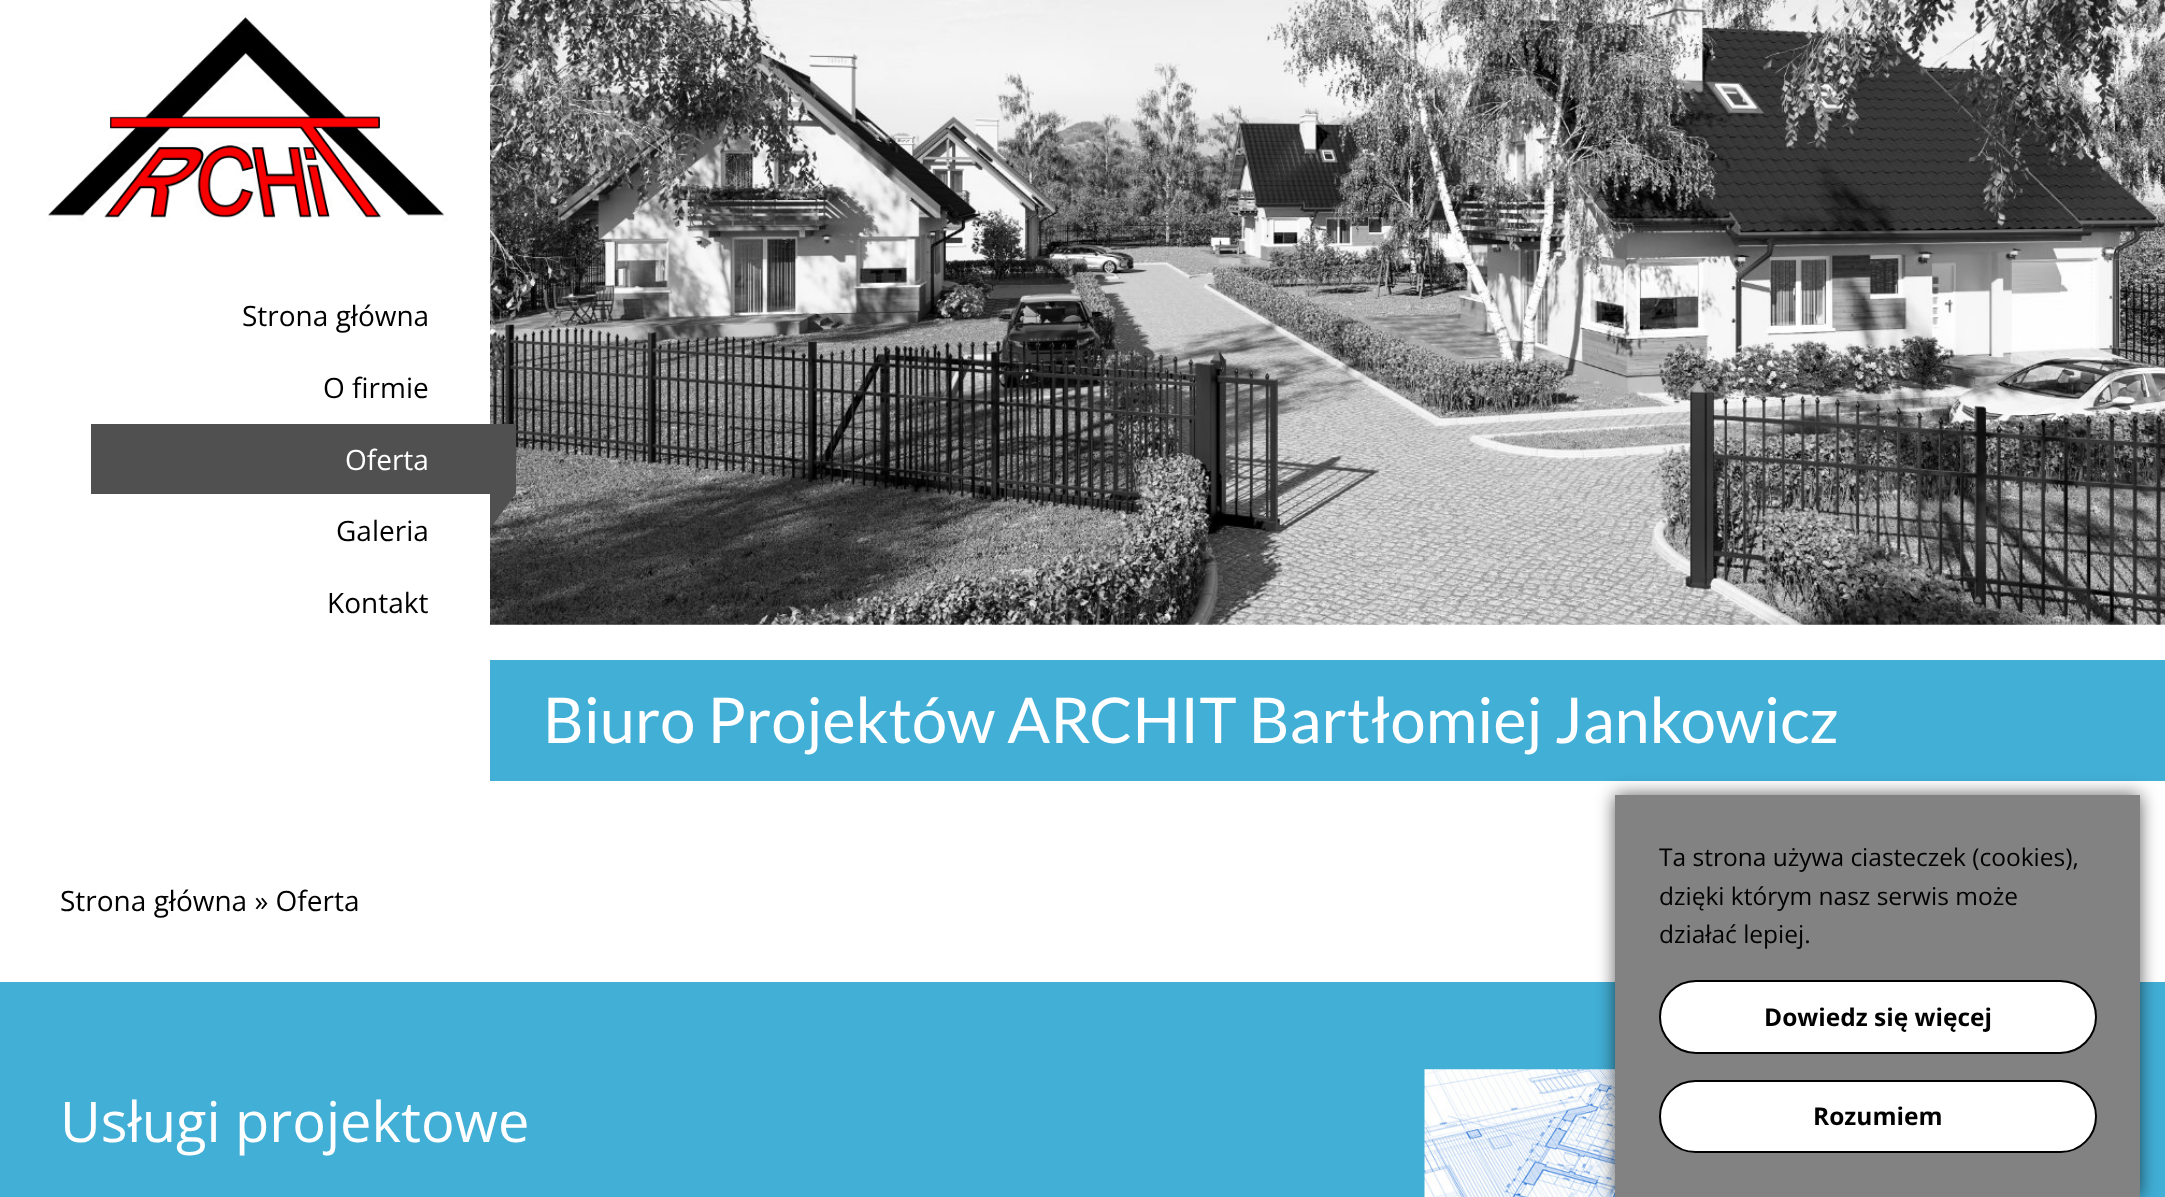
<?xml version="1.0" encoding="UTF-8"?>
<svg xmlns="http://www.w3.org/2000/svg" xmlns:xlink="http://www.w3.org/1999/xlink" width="2165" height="1197">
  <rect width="100%" height="100%" fill="#ffffff" />
  <image x="47" y="14" width="401" height="207" xlink:href="image1.png" />
  <image x="490" y="0" width="1675" height="625" xlink:href="image2.png" />
  <path d="M 490 493.5 h 26 l -26 35 z" fill="#505050" />
  <rect x="91" y="424" width="425" height="70" fill="#505050" />
  <rect x="490" y="660" width="1675" height="121" fill="#42afd6" />
  <rect y="982" width="2165" height="215" fill="#42afd6" />
  <image x="1424" y="1069" width="191" height="128" xlink:href="image3.png" />
  <rect x="1615" y="795" width="525" height="402" fill="#000000" fill-opacity="0.64" filter="blur(9px)" />
  <rect x="1615" y="795" width="525" height="402" fill="#828282" />
  <rect x="1660" y="981" width="436" height="72" rx="36" fill="#ffffff" stroke="#000000" stroke-width="2" />
  <rect x="1660" y="1081" width="436" height="71" rx="35.5" fill="#ffffff" stroke="#000000" stroke-width="2" />
  <text x="242" y="326" style="font-family: Open Sans; font-size: 28px; fill: #000000">Strona główna</text>
  <text x="323" y="398" style="font-family: Open Sans; font-size: 28px; fill: #000000">O firmie</text>
  <text x="345" y="470" style="font-family: Open Sans; font-size: 28px; fill: #ffffff">Oferta</text>
  <text x="336" y="541" style="font-family: Open Sans; font-size: 28px; fill: #000000">Galeria</text>
  <text x="327" y="613" style="font-family: Open Sans; font-size: 28px; fill: #000000">Kontakt</text>
  <text x="543" y="743" style="font-family: Lato; font-size: 63px; fill: #ffffff">Biuro Projektów ARCHIT Bartłomiej Jankowicz</text>
  <text x="60" y="911" style="font-family: Open Sans; font-size: 28px; fill: #000000">Strona główna » Oferta</text>
  <text x="60" y="1142" style="font-family: Open Sans; font-size: 56px; fill: #ffffff">Usługi projektowe</text>
  <text x="1659" y="866" style="font-family: Open Sans; font-size: 24.5px; fill: #000000">Ta strona używa ciasteczek (cookies),</text>
  <text x="1659" y="905" style="font-family: Open Sans; font-size: 24.5px; fill: #000000">dzięki którym nasz serwis może</text>
  <text x="1659" y="943" style="font-family: Open Sans; font-size: 24.5px; fill: #000000">działać lepiej.</text>
  <text x="1764" y="1026" style="font-family: Open Sans; font-size: 24.5px; font-weight: bold; fill: #000000">Dowiedz się więcej</text>
  <text x="1813" y="1125" style="font-family: Open Sans; font-size: 24.5px; font-weight: bold; fill: #000000">Rozumiem</text>
</svg>
